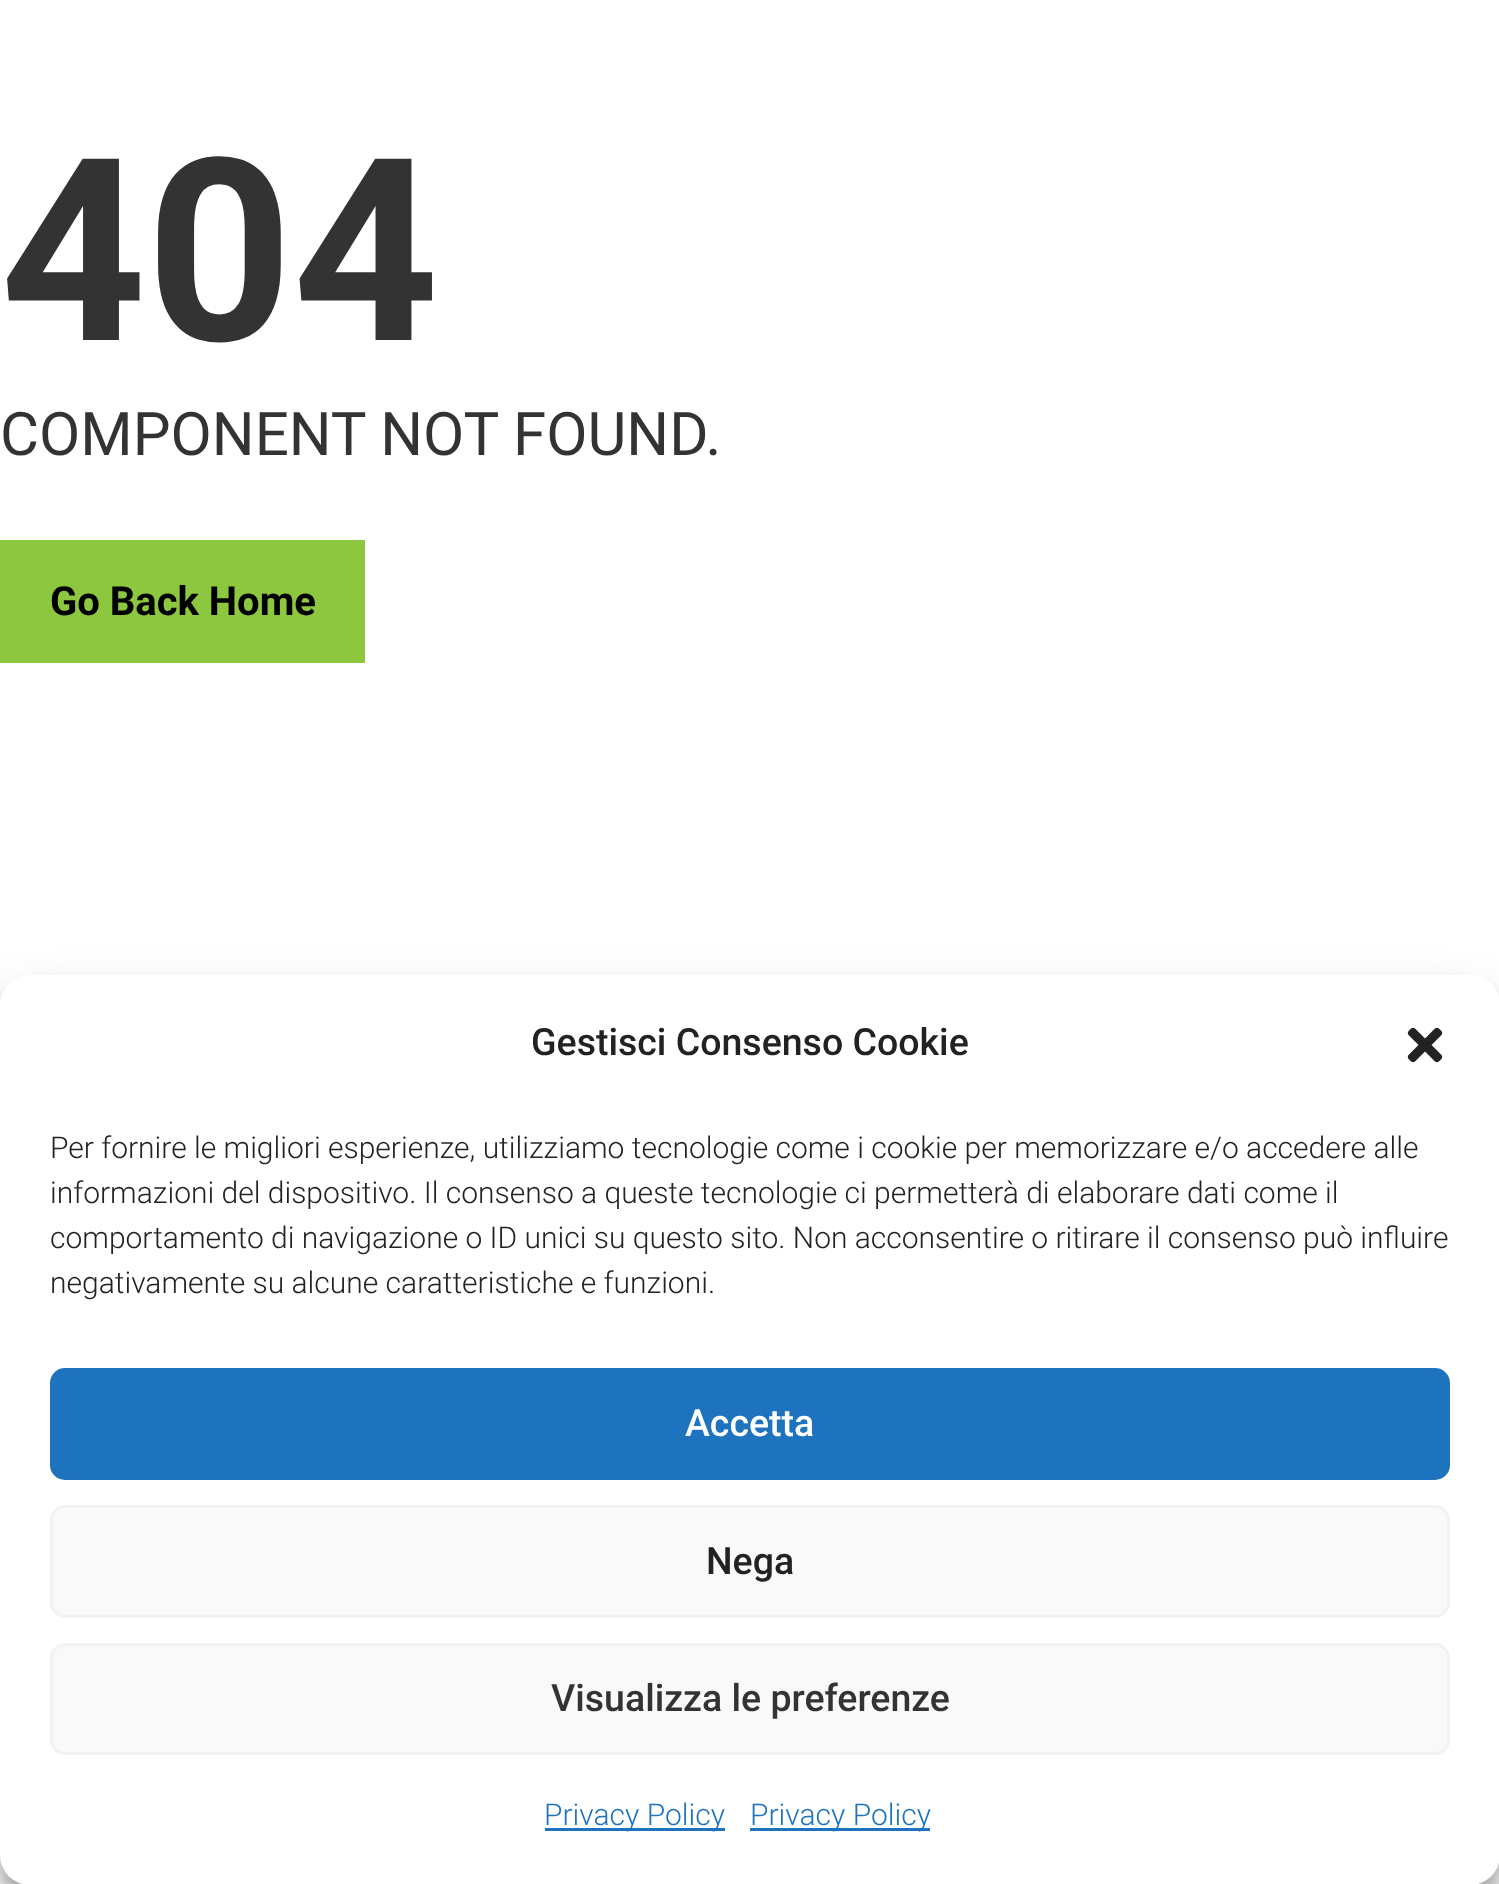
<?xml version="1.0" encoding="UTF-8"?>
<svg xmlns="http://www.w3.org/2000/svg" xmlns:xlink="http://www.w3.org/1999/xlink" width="1499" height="1884">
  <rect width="100%" height="100%" fill="#ffffff" />
  <rect y="540" width="365" height="123" fill="#8dc63f" />
  <rect y="990" width="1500" height="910" rx="30" fill="#000000" fill-opacity="0.23" filter="blur(7.5px)" />
  <rect y="1000" width="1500" height="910" rx="30" fill="#000000" fill-opacity="0.19" filter="blur(25px)" />
  <rect y="975" width="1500" height="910" rx="30" fill="#ffffff" />
  <image x="1407" y="1027" width="36" height="36" xlink:href="image1.png" />
  <rect x="51.5" y="1369.5" width="1397" height="109" rx="13.5" fill="#1e73be" stroke="#1e73be" stroke-width="3" />
  <rect x="51.5" y="1506.5" width="1397" height="110" rx="13.5" fill="#f9f9f9" stroke="#f2f2f2" stroke-width="3" />
  <rect x="51.5" y="1644.5" width="1397" height="109" rx="13.5" fill="#f9f9f9" stroke="#f2f2f2" stroke-width="3" />
  <rect x="545" y="1828" width="180" height="3" fill="#1e73be" />
  <rect x="750" y="1828" width="180" height="3" fill="#1e73be" />
  <text x="0" y="340" style="font-family: Roboto; font-size: 255px; font-weight: bold; fill: #333333">404</text>
  <text x="0" y="455" style="font-family: Roboto; font-size: 60px; fill: #333333">COMPONENT NOT FOUND.</text>
  <text x="50" y="615" style="font-family: Roboto; font-size: 40px; font-weight: bold; fill: #000000">Go Back Home</text>
  <text x="531" y="1055" style="font-family: Roboto; font-size: 37.5px; font-weight: 500; fill: #222222">Gestisci Consenso Cookie</text>
  <text x="50" y="1158" style="font-family: Roboto; font-size: 30px; font-weight: 300; fill: #222222">Per fornire le migliori esperienze, utilizziamo tecnologie come i cookie per memorizzare e/o accedere alle</text>
  <text x="50" y="1203" style="font-family: Roboto; font-size: 30px; font-weight: 300; fill: #222222">informazioni del dispositivo. Il consenso a queste tecnologie ci permetterà di elaborare dati come il</text>
  <text x="50" y="1248" style="font-family: Roboto; font-size: 30px; font-weight: 300; fill: #222222">comportamento di navigazione o ID unici su questo sito. Non acconsentire o ritirare il consenso può influire</text>
  <text x="50" y="1293" style="font-family: Roboto; font-size: 30px; font-weight: 300; fill: #222222">negativamente su alcune caratteristiche e funzioni.</text>
  <text x="685" y="1436" style="font-family: Roboto; font-size: 37.5px; font-weight: 500; fill: #ffffff">Accetta</text>
  <text x="706" y="1574" style="font-family: Roboto; font-size: 37.5px; font-weight: 500; fill: #222222">Nega</text>
  <text x="551" y="1711" style="font-family: Roboto; font-size: 37.5px; font-weight: 500; fill: #333333">Visualizza le preferenze</text>
  <text x="544" y="1825" style="font-family: Roboto; font-size: 30px; font-weight: 300; fill: #1e73be">Privacy Policy</text>
  <text x="750" y="1825" style="font-family: Roboto; font-size: 30px; font-weight: 300; fill: #1e73be">Privacy Policy</text>
</svg>
